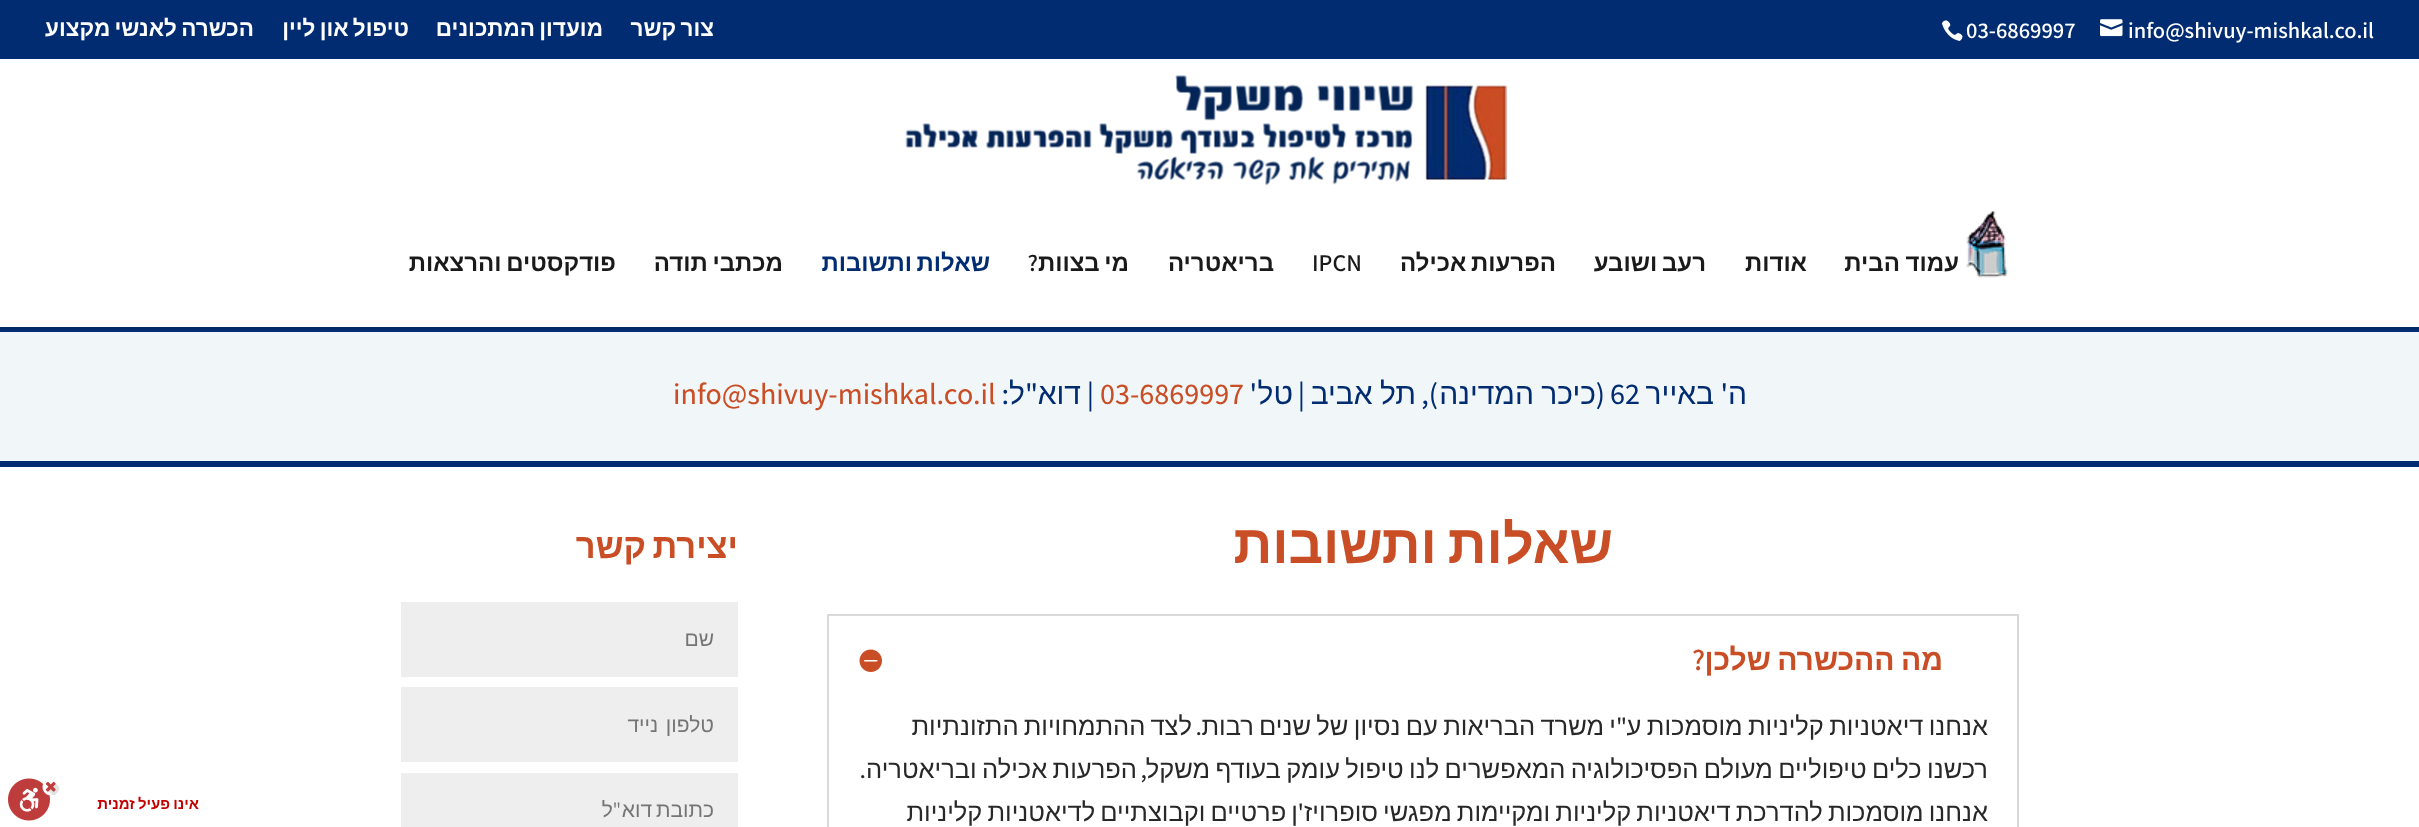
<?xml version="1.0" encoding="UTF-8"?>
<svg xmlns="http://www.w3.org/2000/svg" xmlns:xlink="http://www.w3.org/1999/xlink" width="2419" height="827">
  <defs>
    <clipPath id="clip1"><rect x="425" y="711" width="289" height="27" /></clipPath>
    <clipPath id="clip2"><rect x="425" y="797" width="289" height="27" /></clipPath>
  </defs>
  <rect width="100%" height="100%" fill="#ffffff" />
  <rect width="2419" height="59" fill="#012c71" />
  <image x="2100" y="19" width="23" height="18" xlink:href="image1.png" />
  <image x="1941" y="20" width="22" height="21" xlink:href="image2.png" />
  <path d="M 0 327 v 2 h 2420 v -269 v 267 z" fill="#012866" />
  <image x="905" y="75" width="602" height="111" xlink:href="image3.png" />
  <image x="1966" y="211" width="42" height="67" xlink:href="image4.png" />
  <rect y="332" width="2419" height="129" fill="#f1f6f9" />
  <rect y="329" width="2419" height="3" fill="#012c71" />
  <rect y="461" width="2419" height="6" fill="#012c71" />
  <rect x="828" y="615" width="1190" height="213" fill="none" stroke="#d9d9d9" stroke-width="2" />
  <image x="859" y="649" width="23" height="23" xlink:href="image5.png" />
  <rect x="401" y="602" width="337" height="75" fill="#eeeeee" />
  <rect x="401" y="687" width="337" height="75" fill="#eeeeee" />
  <rect x="401" y="773" width="337" height="54" fill="#eeeeee" />
  <image x="8" y="778" width="52" height="43" xlink:href="image6.png" />
  <text x="2128" y="38" style="font-family: 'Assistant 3'; font-size: 22.5px; font-weight: 200; fill: #ffffff">info@shivuy-mishkal.co.il</text>
  <text x="1966" y="38" style="font-family: 'Assistant 3'; font-size: 22.5px; font-weight: 200; fill: #ffffff">03-6869997</text>
  <text x="714" y="36" word-spacing="-2" style="font-family: Liberation Sans; font-size: 22.5px; font-weight: bold; direction: rtl; fill: #ffffff">צור קשר</text>
  <text x="603" y="36" word-spacing="-2" style="font-family: Liberation Sans; font-size: 22.5px; font-weight: bold; direction: rtl; fill: #ffffff">מועדון המתכונים</text>
  <text x="409" y="36" word-spacing="-2" style="font-family: Liberation Sans; font-size: 22.5px; font-weight: bold; direction: rtl; fill: #ffffff">טיפול און ליין</text>
  <text x="254" y="36" word-spacing="-2" style="font-family: Liberation Sans; font-size: 22.5px; font-weight: bold; direction: rtl; fill: #ffffff">הכשרה לאנשי מקצוע</text>
  <text x="1959" y="271" word-spacing="-1" style="font-family: Liberation Sans; font-size: 24px; font-weight: bold; direction: rtl; fill: #1a1a1a">עמוד הבית</text>
  <text x="1807" y="271" style="font-family: Liberation Sans; font-size: 24px; font-weight: bold; direction: rtl; fill: #1a1a1a">אודות</text>
  <text x="1706" y="271" word-spacing="-2" style="font-family: Liberation Sans; font-size: 24px; font-weight: bold; direction: rtl; fill: #1a1a1a">רעב ושובע</text>
  <text x="1556" y="271" word-spacing="-2" style="font-family: Liberation Sans; font-size: 24px; font-weight: bold; direction: rtl; fill: #1a1a1a">הפרעות אכילה</text>
  <text x="1312" y="271" style="font-family: 'Assistant 3'; font-size: 24px; font-weight: 200; fill: #1a1a1a">IPCN</text>
  <text x="1274" y="271" style="font-family: Liberation Sans; font-size: 24px; font-weight: bold; direction: rtl; fill: #1a1a1a">בריאטריה</text>
  <text x="1129" y="271" word-spacing="-2" style="font-family: Liberation Sans; font-size: 24px; font-weight: bold; direction: rtl; fill: #1a1a1a">מי בצוות</text>
  <text x="1038" y="271" style="font-family: 'Assistant 3'; font-size: 24px; font-weight: 200; direction: rtl; fill: #1a1a1a">?</text>
  <text x="990" y="271" word-spacing="-2" style="font-family: Liberation Sans; font-size: 24px; font-weight: bold; direction: rtl; fill: #012c71">שאלות ותשובות</text>
  <text x="783" y="271" word-spacing="-2" style="font-family: Liberation Sans; font-size: 24px; font-weight: bold; direction: rtl; fill: #1a1a1a">מכתבי תודה</text>
  <text x="616" y="271" word-spacing="-2" style="font-family: Liberation Sans; font-size: 24px; font-weight: bold; direction: rtl; fill: #1a1a1a">פודקסטים והרצאות</text>
  <text x="1747" y="404" style="font-family: Liberation Sans; font-size: 30px; direction: rtl; fill: #012c71">ה</text>
  <text x="1728" y="404" style="font-family: Assistant; font-size: 30px; font-weight: 200; direction: rtl; fill: #012c71">'</text>
  <text x="1714" y="404" style="font-family: Liberation Sans; font-size: 30px; direction: rtl; fill: #012c71">באייר</text>
  <text x="1610" y="404" style="font-family: Assistant; font-size: 30px; font-weight: 200; fill: #012c71">62</text>
  <text x="1605" y="404" style="font-family: Assistant; font-size: 30px; font-weight: 200; direction: rtl; fill: #012c71">(</text>
  <text x="1596" y="404" word-spacing="-1" style="font-family: Liberation Sans; font-size: 30px; direction: rtl; fill: #012c71">כיכר המדינה</text>
  <text x="1438" y="404" style="font-family: Assistant; font-size: 30px; font-weight: 200; direction: rtl; fill: #012c71">),</text>
  <text x="1416" y="404" word-spacing="-1" style="font-family: Liberation Sans; font-size: 30px; direction: rtl; fill: #012c71">תל אביב</text>
  <text x="1305" y="404" style="font-family: Assistant; font-size: 30px; font-weight: 200; direction: rtl; fill: #012c71">|</text>
  <text x="1293" y="404" style="font-family: Liberation Sans; font-size: 30px; direction: rtl; fill: #012c71">טל</text>
  <text x="1257" y="404" style="font-family: Assistant; font-size: 30px; font-weight: 200; direction: rtl; fill: #012c71">'</text>
  <text x="1100" y="404" style="font-family: Assistant; font-size: 30px; font-weight: 200; fill: #c94e25">03-6869997</text>
  <text x="1094" y="404" style="font-family: Assistant; font-size: 30px; font-weight: 200; direction: rtl; fill: #012c71">|</text>
  <text x="1081" y="404" style="font-family: Liberation Sans; font-size: 30px; direction: rtl; fill: #012c71">דוא</text>
  <text x="1038" y="404" style="font-family: Assistant; font-size: 30px; font-weight: 200; direction: rtl; fill: #012c71">"</text>
  <text x="1025" y="404" style="font-family: Liberation Sans; font-size: 30px; direction: rtl; fill: #012c71">ל</text>
  <text x="1009" y="404" style="font-family: Assistant; font-size: 30px; font-weight: 200; direction: rtl; fill: #012c71">:</text>
  <text x="673" y="404" style="font-family: Assistant; font-size: 30px; font-weight: 200; fill: #c94e25">info@shivuy-mishkal.co.il</text>
  <text x="1613" y="563" word-spacing="-4" style="font-family: Liberation Sans; font-size: 54px; font-weight: bold; direction: rtl; fill: #c94e25">שאלות ותשובות</text>
  <text x="1943" y="670" word-spacing="-2" style="font-family: Liberation Sans; font-size: 30px; font-weight: bold; direction: rtl; fill: #c94e25">מה ההכשרה שלכן</text>
  <text x="1705" y="670" style="font-family: 'Assistant 3'; font-size: 30px; font-weight: 200; direction: rtl; fill: #c94e25">?</text>
  <text x="1988" y="735" word-spacing="-1.75" style="font-family: Liberation Sans; font-size: 25.5px; direction: rtl; fill: #282828">אנחנו דיאטניות קליניות מוסמכות ע</text>
  <text x="1616" y="735" word-spacing="-1.75" style="font-family: Liberation Sans; font-size: 25.5px; direction: rtl; fill: #282828">י משרד הבריאות עם נסיון של שנים רבות</text>
  <text x="1192" y="735" word-spacing="-2" style="font-family: Liberation Sans; font-size: 25.5px; direction: rtl; fill: #282828">לצד ההתמחויות התזונתיות</text>
  <text x="1627" y="735" style="font-family: Assistant; font-size: 25.5px; font-weight: 200; direction: rtl; fill: #282828">"</text>
  <text x="1202" y="735" style="font-family: Assistant; font-size: 25.5px; font-weight: 200; direction: rtl; fill: #282828">.</text>
  <text x="1988" y="778" word-spacing="-1.75" style="font-family: Liberation Sans; font-size: 25.5px; direction: rtl; fill: #282828">רכשנו כלים טיפוליים מעולם הפסיכולוגיה המאפשרים לנו טיפול עומק בעודף משקל</text>
  <text x="1147" y="778" style="font-family: Assistant; font-size: 25.5px; font-weight: 200; direction: rtl; fill: #282828">,</text>
  <text x="1137" y="778" word-spacing="-1.75" style="font-family: Liberation Sans; font-size: 25.5px; direction: rtl; fill: #282828">הפרעות אכילה ובריאטריה</text>
  <text x="866" y="778" style="font-family: Assistant; font-size: 25.5px; font-weight: 200; direction: rtl; fill: #282828">.</text>
  <text x="1988" y="821" word-spacing="-2" style="font-family: Liberation Sans; font-size: 25.5px; direction: rtl; fill: #282828">אנחנו מוסמכות להדרכת דיאטניות קליניות ומקיימות מפגשי סופרויז</text>
  <text x="1298" y="821" word-spacing="-2" style="font-family: Liberation Sans; font-size: 25.5px; direction: rtl; fill: #282828">ן פרטיים וקבוצתיים לדיאטניות קליניות</text>
  <text x="1304" y="821" style="font-family: Assistant; font-size: 25.5px; font-weight: 200; direction: rtl; fill: #282828">'</text>
  <text x="738" y="558" word-spacing="-3" style="font-family: Liberation Sans; font-size: 34.5px; font-weight: bold; direction: rtl; fill: #c94e25">יצירת קשר</text>
  <text x="714" y="646" style="font-family: Liberation Sans; font-size: 21px; direction: rtl; fill: #757575">שם</text>
  <g clip-path="url(#clip1)">
    <text x="714" y="732" word-spacing="-2" style="font-family: Liberation Sans; font-size: 21px; direction: rtl; fill: #757575" xml:space="preserve">טלפון  נייד</text>
  </g>
  <g clip-path="url(#clip2)">
    <text x="714" y="817" word-spacing="-2" style="font-family: Liberation Sans; font-size: 21px; direction: rtl; fill: #757575">כתובת דוא</text>
  </g>
  <text x="621" y="817" style="font-family: 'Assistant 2'; font-size: 21px; font-weight: 200; direction: rtl; fill: #757575">"</text>
  <text x="613" y="817" style="font-family: Liberation Sans; font-size: 21px; direction: rtl; fill: #757575">ל</text>
  <text x="199" y="809" word-spacing="-1" style="font-family: Liberation Sans; font-size: 15px; font-weight: bold; direction: rtl; fill: #c20000">אינו פעיל זמנית</text>
</svg>
